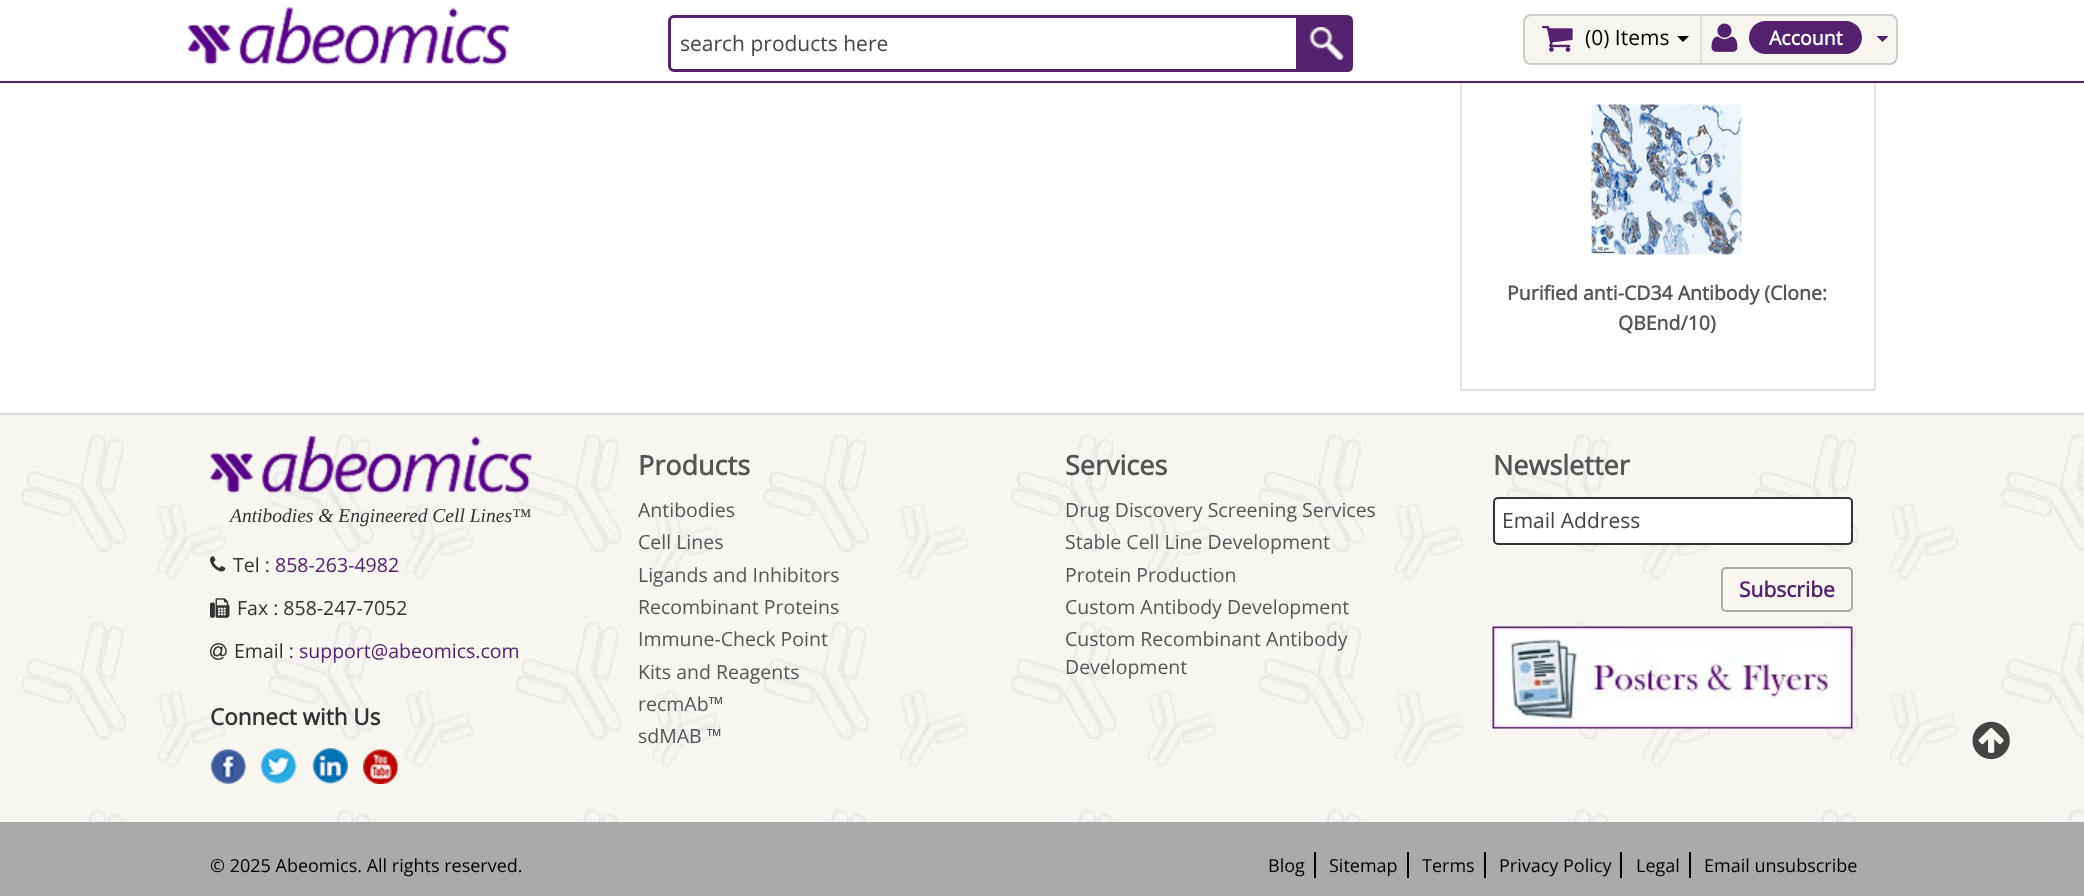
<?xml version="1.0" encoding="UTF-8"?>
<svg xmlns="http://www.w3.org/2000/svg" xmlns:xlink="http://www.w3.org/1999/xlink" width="2084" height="896">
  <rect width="100%" height="100%" fill="#e6edf3" />
  <rect width="2084" height="81" fill="#ffffff" />
  <rect y="81" width="2084" height="2" fill="#53216d" />
  <image x="187" y="7" width="324" height="58" xlink:href="image1.png" />
  <path d="M 674 16.5 h 623.5 v 54 h -623.5 c -2.5 0 -4.5 -2 -4.5 -4.5 v -45 c 0 -2.5 2 -4.5 4.5 -4.5 z" fill="none" stroke="#53216d" stroke-width="3" />
  <path d="M 1300 16 h 47 c 3 0 5 2 5 5 v 45 c 0 3 -2 5 -5 5 h -47 z" fill="#53216d" stroke="#53216d" stroke-width="2" />
  <image x="1309" y="27" width="36" height="33" xlink:href="image2.png" />
  <rect x="1524" y="15" width="373" height="49" rx="7" fill="#f6f5ef" stroke="#cdcdcd" stroke-width="2" />
  <rect x="1700" y="15" width="2" height="48" fill="#e0e1dc" />
  <image x="1542" y="25" width="31" height="27" xlink:href="image3.png" />
  <path d="M 1677 36 h 12 l -6 6 z" fill="#000000" />
  <image x="1711" y="23" width="27" height="29" xlink:href="image4.png" />
  <rect x="1749" y="21" width="113" height="33" rx="16.5" fill="#53216d" />
  <path d="M 1876.5 36 h 12 l -6 6 z" fill="#53216d" />
  <rect y="83" width="2084" height="329" fill="#ffffff" />
  <rect x="1874" y="83" width="2" height="307" fill="#e3e3e3" />
  <rect x="1460" y="389" width="415" height="2" fill="#e3e3e3" />
  <rect x="1460" y="83" width="2" height="307" fill="#e3e3e3" />
  <image x="1591" y="104" width="151" height="151" xlink:href="image5.png" />
  <image x="0" y="412" width="2084" height="410" xlink:href="image6.png" />
  <rect y="413" width="2084" height="2" fill="#dddcde" />
  <image x="210" y="436" width="323" height="58" xlink:href="image7.png" />
  <image x="210" y="556" width="16" height="16" xlink:href="image8.png" />
  <image x="210" y="598" width="20" height="20" xlink:href="image9.png" />
  <image x="210" y="643" width="17" height="17" xlink:href="image10.png" />
  <image x="210" y="749" width="36" height="35" xlink:href="image11.png" />
  <image x="261" y="748" width="36" height="36" xlink:href="image12.png" />
  <image x="312" y="748" width="36" height="36" xlink:href="image13.png" />
  <image x="363" y="749" width="35" height="35" xlink:href="image14.png" />
  <rect x="1494" y="498" width="358" height="46" rx="4" fill="#ffffff" stroke="#333333" stroke-width="2" />
  <rect x="1722" y="568" width="130" height="43" rx="4" fill="none" stroke="#aaaaaa" stroke-width="2" />
  <image x="1492" y="626" width="361" height="103" xlink:href="image15.png" />
  <rect y="822" width="2084" height="74" fill="#aaaaaa" />
  <image x="1972" y="721" width="38" height="39" xlink:href="image16.png" />
  <rect x="1314" y="852" width="2" height="26" fill="#000000" />
  <rect x="1407" y="852" width="2" height="26" fill="#000000" />
  <rect x="1484" y="852" width="2" height="26" fill="#000000" />
  <rect x="1620" y="852" width="2" height="26" fill="#000000" />
  <rect x="1689" y="852" width="2" height="26" fill="#000000" />
  <text x="680" y="51" style="font-family: Open Sans; font-size: 21px; fill: #444444">search products here</text>
  <text x="1585" y="45" style="font-family: Open Sans; font-size: 21px; fill: #000000">(0) Items</text>
  <text x="1769" y="45" style="font-family: Open Sans; font-size: 19.5px; font-weight: bold; fill: #ffffff">Account</text>
  <text x="1507" y="300" style="font-family: Open Sans; font-size: 19.5px; font-weight: bold; fill: #555555">Purified anti-CD34 Antibody (Clone:</text>
  <text x="1618" y="330" style="font-family: Open Sans; font-size: 19.5px; font-weight: bold; fill: #555555">QBEnd/10)</text>
  <text x="230" y="522" style="font-family: Liberation Serif; font-size: 19.5px; font-style: italic; fill: #333333">Antibodies &amp; Engineered Cell Lines™</text>
  <text x="233" y="572" style="font-family: Open Sans; font-size: 19.5px; fill: #333333">Tel :</text>
  <text x="275" y="572" style="font-family: Open Sans; font-size: 19.5px; fill: #53216d">858-263-4982</text>
  <text x="237" y="615" style="font-family: Open Sans; font-size: 19.5px; fill: #333333">Fax : 858-247-7052</text>
  <text x="234" y="658" style="font-family: Open Sans; font-size: 19.5px; fill: #333333">Email :</text>
  <text x="299" y="658" style="font-family: Open Sans; font-size: 19.5px; fill: #53216d">support@abeomics.com</text>
  <text x="210" y="725" style="font-family: Open Sans; font-size: 22.5px; font-weight: bold; fill: #333333">Connect with Us</text>
  <text x="638" y="475" style="font-family: Open Sans; font-size: 27px; font-weight: bold; fill: #555555">Products</text>
  <text x="638" y="517" style="font-family: Open Sans; font-size: 19.5px; fill: #555555">Antibodies</text>
  <text x="638" y="549" style="font-family: Open Sans; font-size: 19.5px; fill: #555555">Cell Lines</text>
  <text x="638" y="582" style="font-family: Open Sans; font-size: 19.5px; fill: #555555">Ligands and Inhibitors</text>
  <text x="638" y="614" style="font-family: Open Sans; font-size: 19.5px; fill: #555555">Recombinant Proteins</text>
  <text x="638" y="646" style="font-family: Open Sans; font-size: 19.5px; fill: #555555">Immune-Check Point</text>
  <text x="638" y="679" style="font-family: Open Sans; font-size: 19.5px; fill: #555555">Kits and Reagents</text>
  <text x="638" y="711" style="font-family: Open Sans; font-size: 19.5px; fill: #555555">recmAb™</text>
  <text x="638" y="743" style="font-family: Open Sans; font-size: 19.5px; fill: #555555">sdMAB ™</text>
  <text x="1065" y="475" style="font-family: Open Sans; font-size: 27px; font-weight: bold; fill: #555555">Services</text>
  <text x="1065" y="517" style="font-family: Open Sans; font-size: 19.5px; fill: #555555">Drug Discovery Screening Services</text>
  <text x="1065" y="549" style="font-family: Open Sans; font-size: 19.5px; fill: #555555">Stable Cell Line Development</text>
  <text x="1065" y="582" style="font-family: Open Sans; font-size: 19.5px; fill: #555555">Protein Production</text>
  <text x="1065" y="614" style="font-family: Open Sans; font-size: 19.5px; fill: #555555">Custom Antibody Development</text>
  <text x="1065" y="646" style="font-family: Open Sans; font-size: 19.5px; fill: #555555">Custom Recombinant Antibody</text>
  <text x="1065" y="674" style="font-family: Open Sans; font-size: 19.5px; fill: #555555">Development</text>
  <text x="1493" y="475" style="font-family: Open Sans; font-size: 27px; font-weight: bold; fill: #555555">Newsletter</text>
  <text x="1502" y="528" style="font-family: Open Sans; font-size: 21px; fill: #444444">Email Address</text>
  <text x="1739" y="597" style="font-family: Open Sans; font-size: 21px; font-weight: bold; fill: #53216d">Subscribe</text>
  <text x="210" y="872" style="font-family: Open Sans; font-size: 18px; fill: #000000">© 2025 Abeomics. All rights reserved.</text>
  <text x="1268" y="872" style="font-family: Open Sans; font-size: 18px; fill: #000000">Blog</text>
  <text x="1329" y="872" style="font-family: Open Sans; font-size: 18px; fill: #000000">Sitemap</text>
  <text x="1422" y="872" style="font-family: Open Sans; font-size: 18px; fill: #000000">Terms</text>
  <text x="1499" y="872" style="font-family: Open Sans; font-size: 18px; fill: #000000">Privacy Policy</text>
  <text x="1636" y="872" style="font-family: Open Sans; font-size: 18px; fill: #000000">Legal</text>
  <text x="1704" y="872" style="font-family: Open Sans; font-size: 18px; fill: #000000">Email unsubscribe</text>
</svg>
